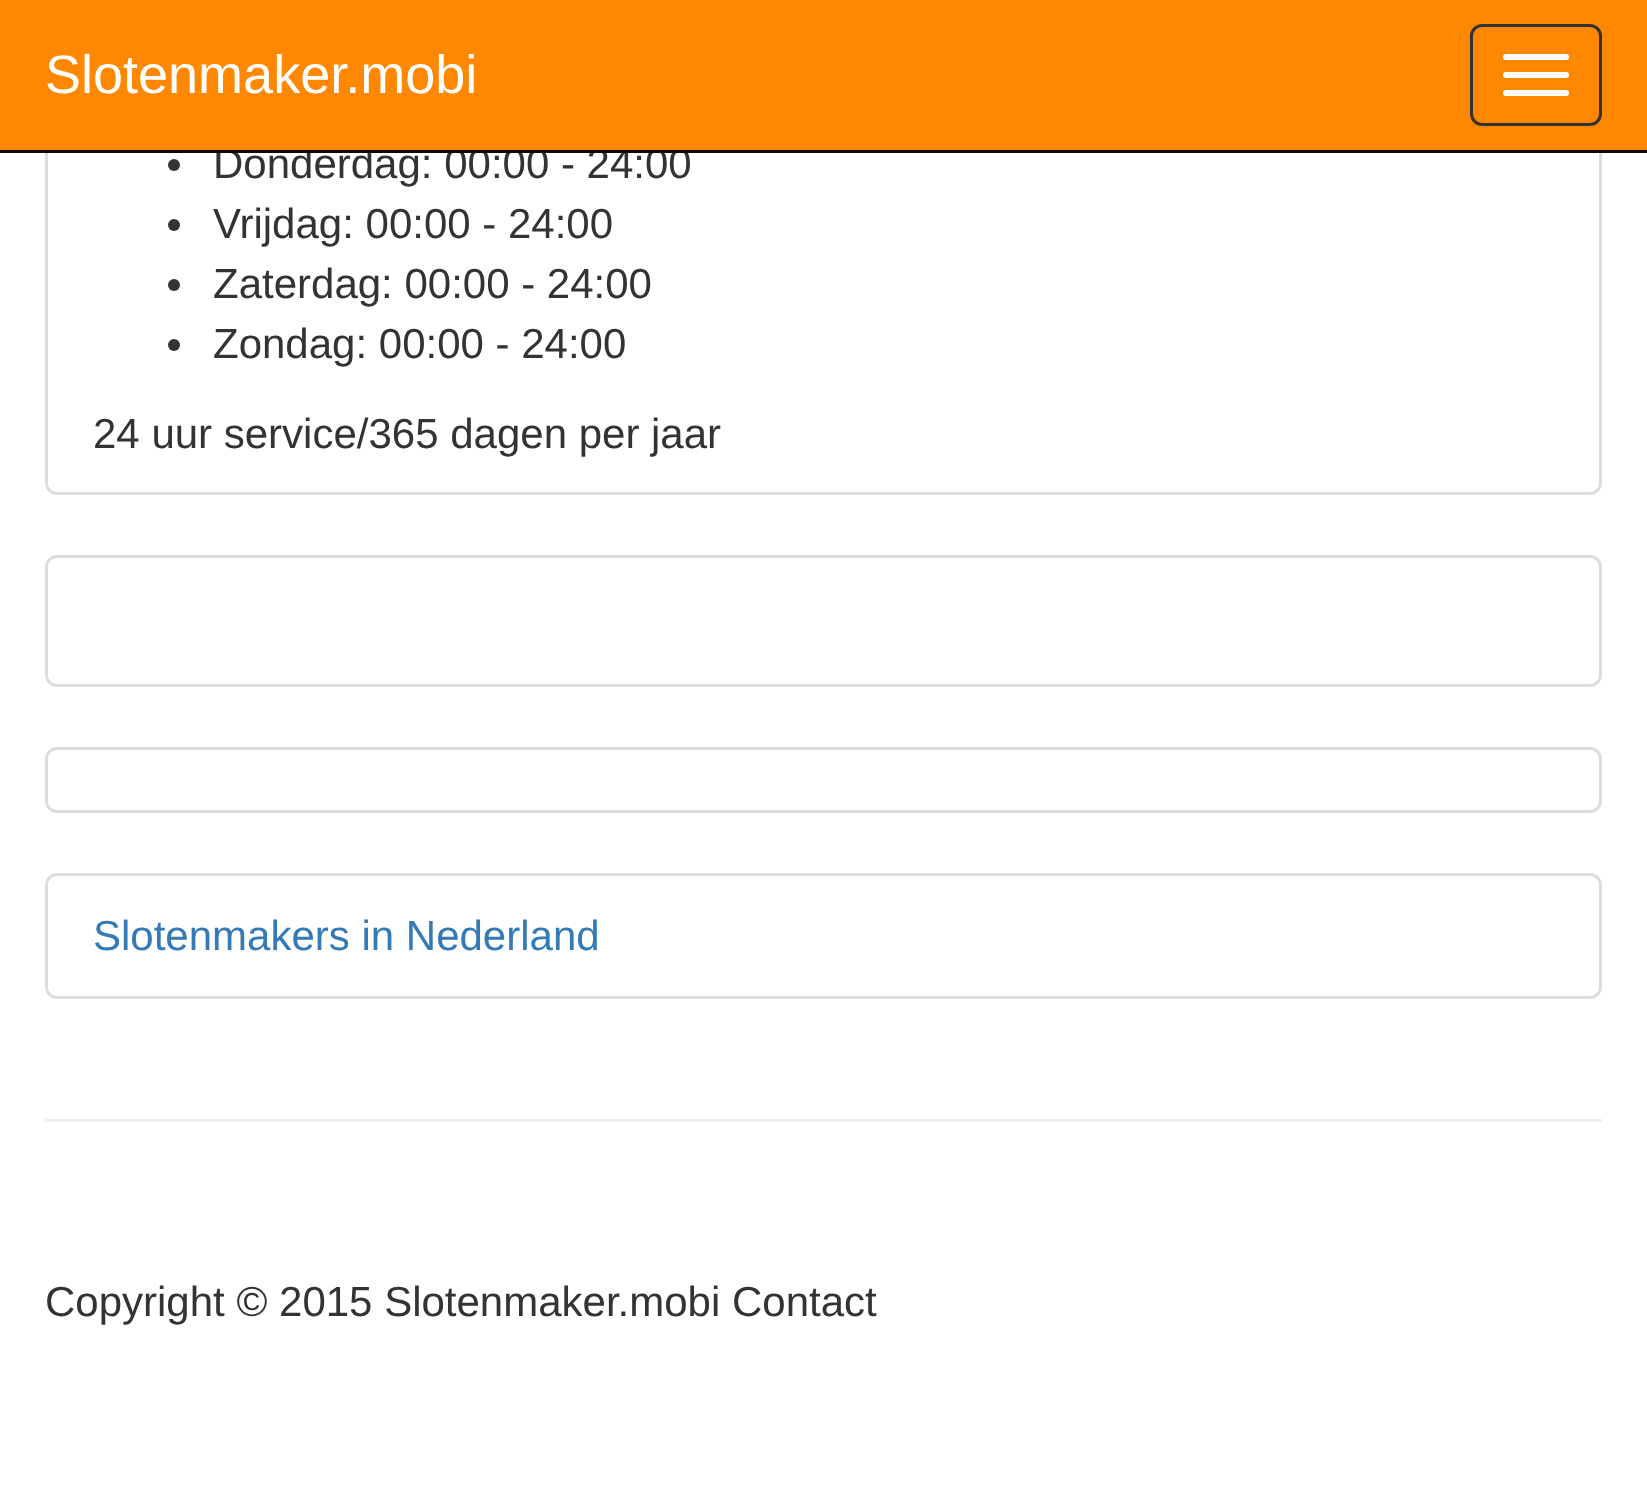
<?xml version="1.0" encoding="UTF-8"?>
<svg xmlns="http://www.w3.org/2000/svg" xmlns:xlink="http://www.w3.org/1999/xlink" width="1647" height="1511">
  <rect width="100%" height="100%" fill="#ffffff" />
  <rect x="46.5" y="-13.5" width="1554" height="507" rx="10.5" fill="none" stroke="#dddddd" stroke-width="3" />
  <circle cx="174" cy="165" r="6" fill="#333333" />
  <circle cx="174" cy="225" r="6" fill="#333333" />
  <circle cx="174" cy="285" r="6" fill="#333333" />
  <circle cx="174" cy="345" r="6" fill="#333333" />
  <rect x="46.5" y="556.5" width="1554" height="129" rx="10.5" fill="none" stroke="#dddddd" stroke-width="3" />
  <rect x="46.5" y="748.5" width="1554" height="63" rx="10.5" fill="none" stroke="#dddddd" stroke-width="3" />
  <rect x="46.5" y="874.5" width="1554" height="123" rx="10.5" fill="none" stroke="#dddddd" stroke-width="3" />
  <rect x="45" y="1119" width="1557" height="3" fill="#eeeeee" />
  <text x="213" y="178" style="font-family: Liberation Sans; font-size: 42px; fill: #333333">Donderdag: 00:00 - 24:00</text>
  <rect width="1647" height="150" fill="#ff8800" />
  <rect x="1471.5" y="25.5" width="129" height="99" rx="10.5" fill="none" stroke="#333333" stroke-width="3" />
  <rect x="1503" y="90" width="66" height="6" rx="3" fill="#ffffff" />
  <rect x="1503" y="72" width="66" height="6" rx="3" fill="#ffffff" />
  <rect x="1503" y="54" width="66" height="6" rx="3" fill="#ffffff" />
  <text x="45" y="93" style="font-family: Liberation Sans; font-size: 54px; fill: #ffffff">Slotenmaker.mobi</text>
  <rect y="150" width="1647" height="3" fill="#080808" />
  <text x="213" y="238" style="font-family: Liberation Sans; font-size: 42px; fill: #333333">Vrijdag: 00:00 - 24:00</text>
  <text x="213" y="298" style="font-family: Liberation Sans; font-size: 42px; fill: #333333">Zaterdag: 00:00 - 24:00</text>
  <text x="213" y="358" style="font-family: Liberation Sans; font-size: 42px; fill: #333333">Zondag: 00:00 - 24:00</text>
  <text x="93" y="448" style="font-family: Liberation Sans; font-size: 42px; fill: #333333">24 uur service/365 dagen per jaar</text>
  <text x="93" y="950" style="font-family: Liberation Sans; font-size: 42px; fill: #337ab7">Slotenmakers in Nederland</text>
  <text x="45" y="1316" style="font-family: Liberation Sans; font-size: 42px; fill: #333333">Copyright © 2015 Slotenmaker.mobi Contact</text>
</svg>
